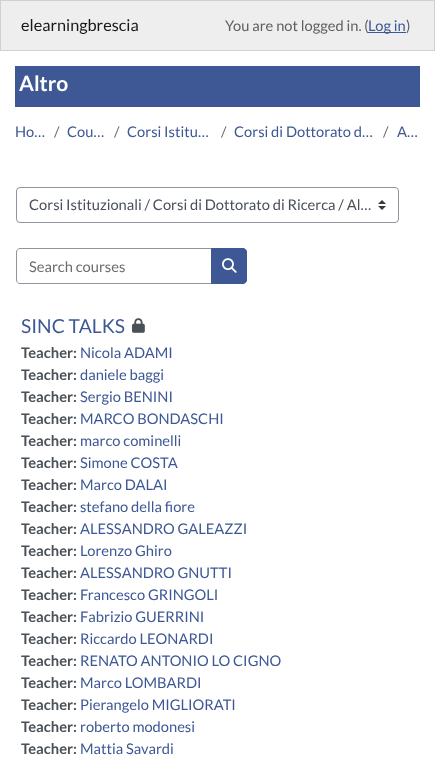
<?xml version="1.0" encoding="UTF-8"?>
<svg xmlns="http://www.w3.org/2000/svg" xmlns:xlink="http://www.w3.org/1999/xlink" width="435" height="772">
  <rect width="100%" height="100%" fill="#ffffff" />
  <rect x="0.5" y="0.5" width="434" height="50" fill="#eeeeee" stroke="#d0d0d0" />
  <rect x="368" y="32" width="38" height="1" fill="#3d5895" />
  <rect x="15" y="66" width="405" height="41" fill="#3d5895" />
  <image x="378" y="200" width="8" height="10" xlink:href="image1.png" />
  <rect x="16.5" y="187.5" width="382" height="35" rx="3.5" fill="none" stroke="#8f959e" />
  <path d="M 20 248.5 h 191.5 v 35 h -191.5 c -2 0 -3.5 -1.5 -3.5 -3.5 v -28 c 0 -2 1.5 -3.5 3.5 -3.5 z" fill="none" stroke="#8f959e" />
  <path d="M 211.5 248.5 h 31.5 c 2 0 3.5 1.5 3.5 3.5 v 28 c 0 2 -1.5 3.5 -3.5 3.5 h -31.5 z" fill="#3d5895" stroke="#3d5895" />
  <image x="222" y="258" width="15" height="15" xlink:href="image2.png" />
  <image x="132" y="318" width="13" height="15" xlink:href="image3.png" />
  <text x="21" y="31" style="font-family: Lato; font-size: 16.25px; fill: #181818">elearningbrescia</text>
  <text x="225" y="31" style="font-family: Lato; font-size: 14.7px; fill: #5f5f5f">You are not logged in. (</text>
  <text x="368" y="31" style="font-family: Lato; font-size: 14.7px; fill: #3d5895">Log in</text>
  <text x="406" y="31" style="font-family: Lato; font-size: 14.7px; fill: #5f5f5f">)</text>
  <text x="19" y="91" style="font-family: Lato; font-size: 21px; font-weight: bold; fill: #ffffff">Altro</text>
  <text x="15" y="137" style="font-family: Lato; font-size: 14.7px; fill: #3d5895">Ho…</text>
  <text x="54" y="137" style="font-family: Lato; font-size: 14.7px; fill: #6c6c6c">/</text>
  <text x="67" y="137" style="font-family: Lato; font-size: 14.7px; fill: #3d5895">Cou…</text>
  <text x="114" y="137" style="font-family: Lato; font-size: 14.7px; fill: #6c6c6c">/</text>
  <text x="127" y="137" style="font-family: Lato; font-size: 14.7px; fill: #3d5895">Corsi Istitu…</text>
  <text x="221" y="137" style="font-family: Lato; font-size: 14.7px; fill: #6c6c6c">/</text>
  <text x="234" y="137" style="font-family: Lato; font-size: 14.7px; fill: #3d5895">Corsi di Dottorato d…</text>
  <text x="383" y="137" style="font-family: Lato; font-size: 14.7px; fill: #6c6c6c">/</text>
  <text x="397" y="137" style="font-family: Lato; font-size: 14.7px; fill: #3d5895">A…</text>
  <text x="29" y="210" style="font-family: Lato; font-size: 14.7px; fill: #495057">Corsi Istituzionali / Corsi di Dottorato di Ricerca / Al…</text>
  <text x="29" y="272" style="font-family: Lato; font-size: 14.7px; fill: #6c6c6c">Search courses</text>
  <text x="21" y="333" style="font-family: Lato; font-size: 19.25px; fill: #3d5895">SINC TALKS</text>
  <text x="21" y="358" style="font-family: Lato; font-size: 14.7px; font-weight: bold; fill: #495057">Teacher:</text>
  <text x="80" y="358" style="font-family: Lato; font-size: 14.7px; fill: #3d5895">Nicola ADAMI</text>
  <text x="21" y="380" style="font-family: Lato; font-size: 14.7px; font-weight: bold; fill: #495057">Teacher:</text>
  <text x="80" y="380" style="font-family: Lato; font-size: 14.7px; fill: #3d5895">daniele baggi</text>
  <text x="21" y="402" style="font-family: Lato; font-size: 14.7px; font-weight: bold; fill: #495057">Teacher:</text>
  <text x="80" y="402" style="font-family: Lato; font-size: 14.7px; fill: #3d5895">Sergio BENINI</text>
  <text x="21" y="424" style="font-family: Lato; font-size: 14.7px; font-weight: bold; fill: #495057">Teacher:</text>
  <text x="80" y="424" style="font-family: Lato; font-size: 14.7px; fill: #3d5895">MARCO BONDASCHI</text>
  <text x="21" y="446" style="font-family: Lato; font-size: 14.7px; font-weight: bold; fill: #495057">Teacher:</text>
  <text x="80" y="446" style="font-family: Lato; font-size: 14.7px; fill: #3d5895">marco cominelli</text>
  <text x="21" y="468" style="font-family: Lato; font-size: 14.7px; font-weight: bold; fill: #495057">Teacher:</text>
  <text x="80" y="468" style="font-family: Lato; font-size: 14.7px; fill: #3d5895">Simone COSTA</text>
  <text x="21" y="490" style="font-family: Lato; font-size: 14.7px; font-weight: bold; fill: #495057">Teacher:</text>
  <text x="80" y="490" style="font-family: Lato; font-size: 14.7px; fill: #3d5895">Marco DALAI</text>
  <text x="21" y="512" style="font-family: Lato; font-size: 14.7px; font-weight: bold; fill: #495057">Teacher:</text>
  <text x="80" y="512" style="font-family: Lato; font-size: 14.7px; fill: #3d5895">stefano della fiore</text>
  <text x="21" y="534" style="font-family: Lato; font-size: 14.7px; font-weight: bold; fill: #495057">Teacher:</text>
  <text x="80" y="534" style="font-family: Lato; font-size: 14.7px; fill: #3d5895">ALESSANDRO GALEAZZI</text>
  <text x="21" y="556" style="font-family: Lato; font-size: 14.7px; font-weight: bold; fill: #495057">Teacher:</text>
  <text x="80" y="556" style="font-family: Lato; font-size: 14.7px; fill: #3d5895">Lorenzo Ghiro</text>
  <text x="21" y="578" style="font-family: Lato; font-size: 14.7px; font-weight: bold; fill: #495057">Teacher:</text>
  <text x="80" y="578" style="font-family: Lato; font-size: 14.7px; fill: #3d5895">ALESSANDRO GNUTTI</text>
  <text x="21" y="600" style="font-family: Lato; font-size: 14.7px; font-weight: bold; fill: #495057">Teacher:</text>
  <text x="80" y="600" style="font-family: Lato; font-size: 14.7px; fill: #3d5895">Francesco GRINGOLI</text>
  <text x="21" y="622" style="font-family: Lato; font-size: 14.7px; font-weight: bold; fill: #495057">Teacher:</text>
  <text x="80" y="622" style="font-family: Lato; font-size: 14.7px; fill: #3d5895">Fabrizio GUERRINI</text>
  <text x="21" y="644" style="font-family: Lato; font-size: 14.7px; font-weight: bold; fill: #495057">Teacher:</text>
  <text x="80" y="644" style="font-family: Lato; font-size: 14.7px; fill: #3d5895">Riccardo LEONARDI</text>
  <text x="21" y="666" style="font-family: Lato; font-size: 14.7px; font-weight: bold; fill: #495057">Teacher:</text>
  <text x="80" y="666" style="font-family: Lato; font-size: 14.7px; fill: #3d5895">RENATO ANTONIO LO CIGNO</text>
  <text x="21" y="688" style="font-family: Lato; font-size: 14.7px; font-weight: bold; fill: #495057">Teacher:</text>
  <text x="80" y="688" style="font-family: Lato; font-size: 14.7px; fill: #3d5895">Marco LOMBARDI</text>
  <text x="21" y="710" style="font-family: Lato; font-size: 14.7px; font-weight: bold; fill: #495057">Teacher:</text>
  <text x="80" y="710" style="font-family: Lato; font-size: 14.7px; fill: #3d5895">Pierangelo MIGLIORATI</text>
  <text x="21" y="732" style="font-family: Lato; font-size: 14.7px; font-weight: bold; fill: #495057">Teacher:</text>
  <text x="80" y="732" style="font-family: Lato; font-size: 14.7px; fill: #3d5895">roberto modonesi</text>
  <text x="21" y="754" style="font-family: Lato; font-size: 14.7px; font-weight: bold; fill: #495057">Teacher:</text>
  <text x="80" y="754" style="font-family: Lato; font-size: 14.7px; fill: #3d5895">Mattia Savardi</text>
</svg>
